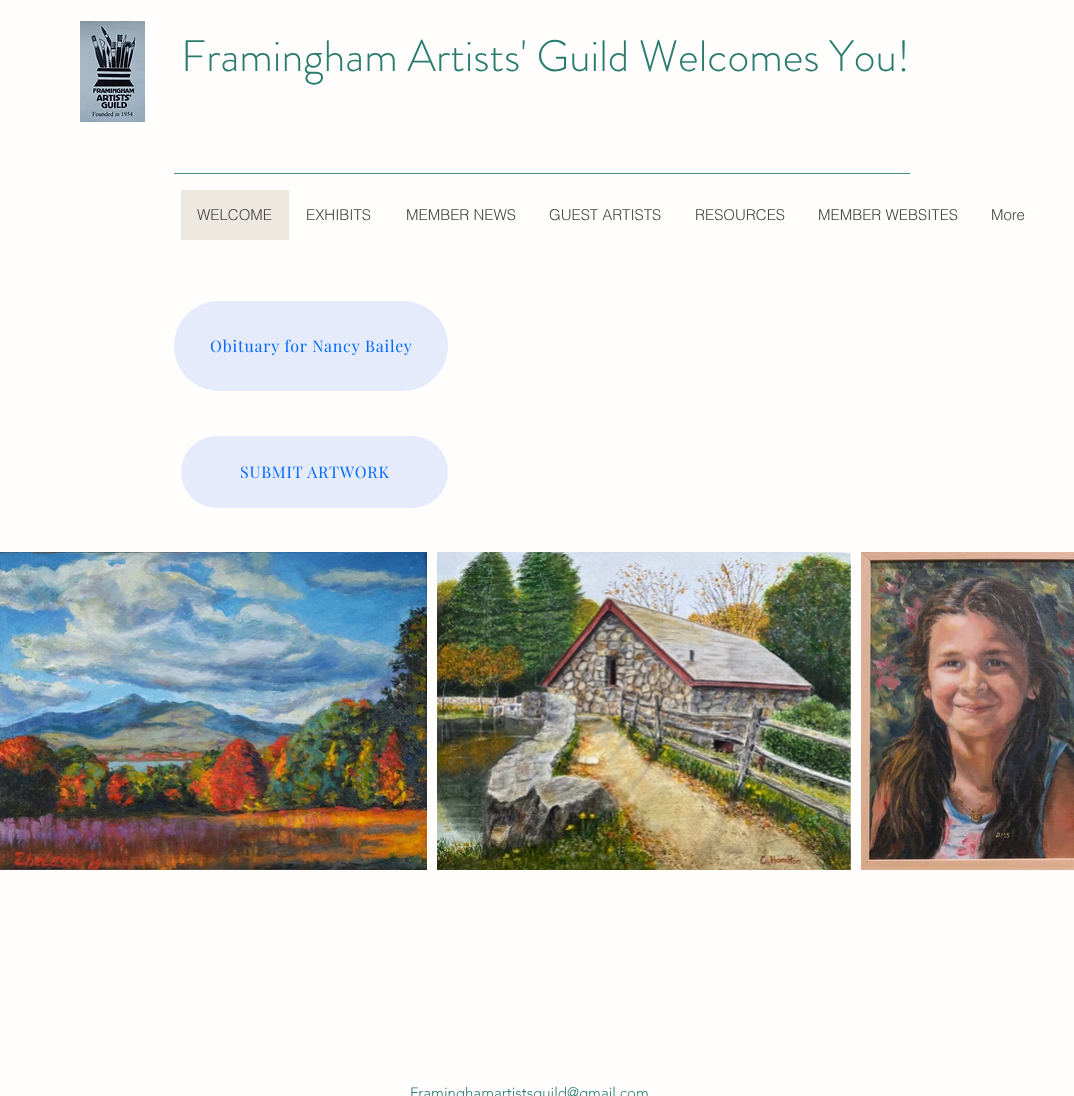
<?xml version="1.0" encoding="UTF-8"?>
<svg xmlns="http://www.w3.org/2000/svg" xmlns:xlink="http://www.w3.org/1999/xlink" width="1074" height="1096">
  <rect width="100%" height="100%" fill="#fffefc" />
  <image x="80" y="21" width="65" height="101" xlink:href="image1.png" />
  <rect x="174" y="173" width="736" height="1" fill="#4a9084" />
  <rect x="181" y="190" width="108" height="50" fill="#ede9e1" />
  <rect x="174" y="301" width="274" height="90" rx="45" fill="#e5ebfa" />
  <rect x="181" y="436" width="267" height="72" rx="36" fill="#e5ebfa" />
  <image x="0" y="552" width="427" height="318" xlink:href="image2.png" />
  <image x="437" y="552" width="414" height="318" xlink:href="image3.png" />
  <image x="861" y="552" width="213" height="318" xlink:href="image4.png" />
  <text x="181" y="71" style="font-family: 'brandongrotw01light'; font-size: 44px; font-weight: 300; fill: #2a7c6f">Framingham Artists' Guild Welcomes You!</text>
  <text x="197" y="220" style="font-family: helvetica; font-size: 15px; font-weight: 300; fill: #444444">WELCOME</text>
  <text x="306" y="220" style="font-family: helvetica; font-size: 15px; font-weight: 300; fill: #444444">EXHIBITS</text>
  <text x="406" y="220" style="font-family: helvetica; font-size: 15px; font-weight: 300; fill: #444444">MEMBER NEWS</text>
  <text x="549" y="220" style="font-family: helvetica; font-size: 15px; font-weight: 300; fill: #444444">GUEST ARTISTS</text>
  <text x="695" y="220" style="font-family: helvetica; font-size: 15px; font-weight: 300; fill: #444444">RESOURCES</text>
  <text x="818" y="220" style="font-family: helvetica; font-size: 15px; font-weight: 300; fill: #444444">MEMBER WEBSITES</text>
  <text x="991" y="220" style="font-family: helvetica; font-size: 15px; font-weight: 300; fill: #444444">More</text>
  <text x="210" y="352" style="font-family: Playfair Display; font-size: 16px; letter-spacing: 0.8px; fill: #0069ff">Obituary for Nancy Bailey</text>
  <text x="240" y="478" style="font-family: Playfair Display; font-size: 16px; letter-spacing: 0.8px; fill: #0069ff">SUBMIT ARTWORK</text>
  <text x="410" y="1098" style="font-family: 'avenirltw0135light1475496'; font-size: 15px; font-weight: 300; fill: #2a7c6f">Framinghamartistsguild@gmail.com</text>
</svg>
